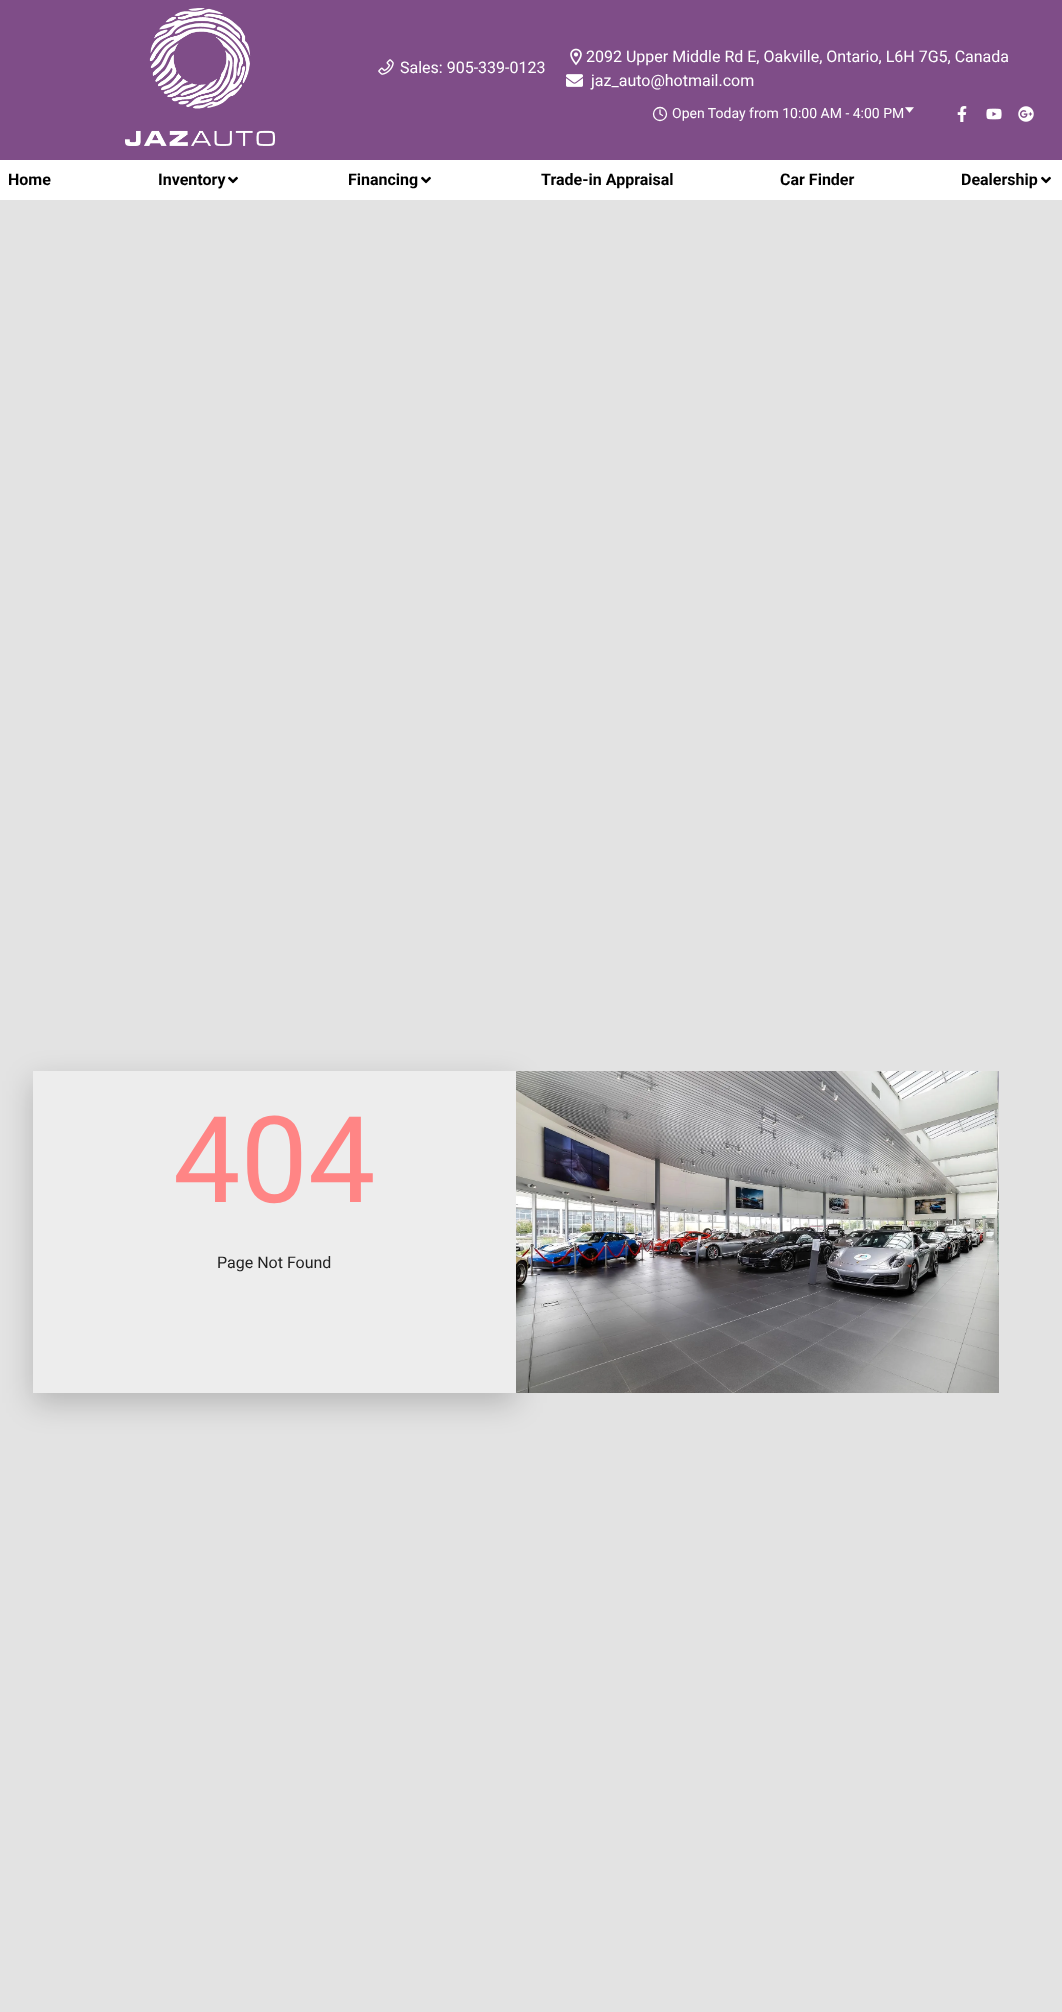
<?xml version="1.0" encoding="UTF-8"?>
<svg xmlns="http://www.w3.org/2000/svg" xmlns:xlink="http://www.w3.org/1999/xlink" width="1062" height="2012">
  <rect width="100%" height="100%" fill="#e3e3e3" />
  <rect width="1062" height="160" fill="#7f4d88" />
  <image x="125" y="8" width="150" height="138" xlink:href="image1.png" />
  <image x="378" y="59" width="16" height="16" xlink:href="image2.png" />
  <image x="570" y="48" width="12" height="18" xlink:href="image3.png" />
  <image x="566" y="74" width="17" height="13" xlink:href="image4.png" />
  <circle cx="660" cy="114" r="6.5" fill="none" stroke="#ffffff" stroke-width="1.3" />
  <path d="M 660 110 v 4 l 2.5 1.5" fill="none" stroke="#ffffff" stroke-width="1.3" stroke-linecap="round" stroke-linejoin="round" />
  <image x="957" y="106" width="10" height="16" xlink:href="image5.png" />
  <image x="986" y="108" width="16" height="12" xlink:href="image6.png" />
  <image x="1018" y="106" width="16" height="16" xlink:href="image7.png" />
  <rect y="160" width="1062" height="40" fill="#ffffff" />
  <image x="228" y="176" width="10" height="8" xlink:href="image8.png" />
  <image x="421" y="176" width="10" height="8" xlink:href="image8.png" />
  <image x="1041" y="176" width="10" height="8" xlink:href="image8.png" />
  <rect x="33" y="1081" width="483" height="322" fill="#000000" fill-opacity="0.2" filter="blur(15px)" />
  <rect x="33" y="1071" width="483" height="322" fill="#ededed" />
  <image x="516" y="1071" width="483" height="322" xlink:href="image9.png" />
  <text x="400" y="73" style="font-family: Roboto; font-size: 16px; fill: #ffffff">Sales: 905-339-0123</text>
  <text x="586" y="62" style="font-family: Roboto; font-size: 16px; fill: #ffffff">2092 Upper Middle Rd E, Oakville, Ontario, L6H 7G5, Canada</text>
  <text x="591" y="86" style="font-family: Roboto; font-size: 16px; fill: #ffffff">jaz_auto@hotmail.com</text>
  <text x="672" y="118" style="font-family: Roboto; font-size: 14px; fill: #ffffff">Open Today from 10:00 AM - 4:00 PM</text>
  <text x="904" y="125" style="font-family: 'Noto Sans Symbols 2'; font-size: 20px; fill: #ffffff">🢓</text>
  <text x="8" y="185" style="font-family: Roboto; font-size: 16px; font-weight: bold; fill: #000000">Home</text>
  <text x="158" y="185" style="font-family: Roboto; font-size: 16px; font-weight: bold; fill: #000000">Inventory</text>
  <text x="348" y="185" style="font-family: Roboto; font-size: 16px; font-weight: bold; fill: #000000">Financing</text>
  <text x="541" y="185" style="font-family: Roboto; font-size: 16px; font-weight: bold; fill: #000000">Trade-in Appraisal</text>
  <text x="780" y="185" style="font-family: Roboto; font-size: 16px; font-weight: bold; fill: #000000">Car Finder</text>
  <text x="961" y="185" style="font-family: Roboto; font-size: 16px; font-weight: bold; fill: #000000">Dealership</text>
  <text x="173" y="1202" style="font-family: Roboto; font-size: 120px; fill: #ff8585">404</text>
  <text x="217" y="1268" style="font-family: Roboto; font-size: 16px; fill: #222222">Page Not Found</text>
</svg>
